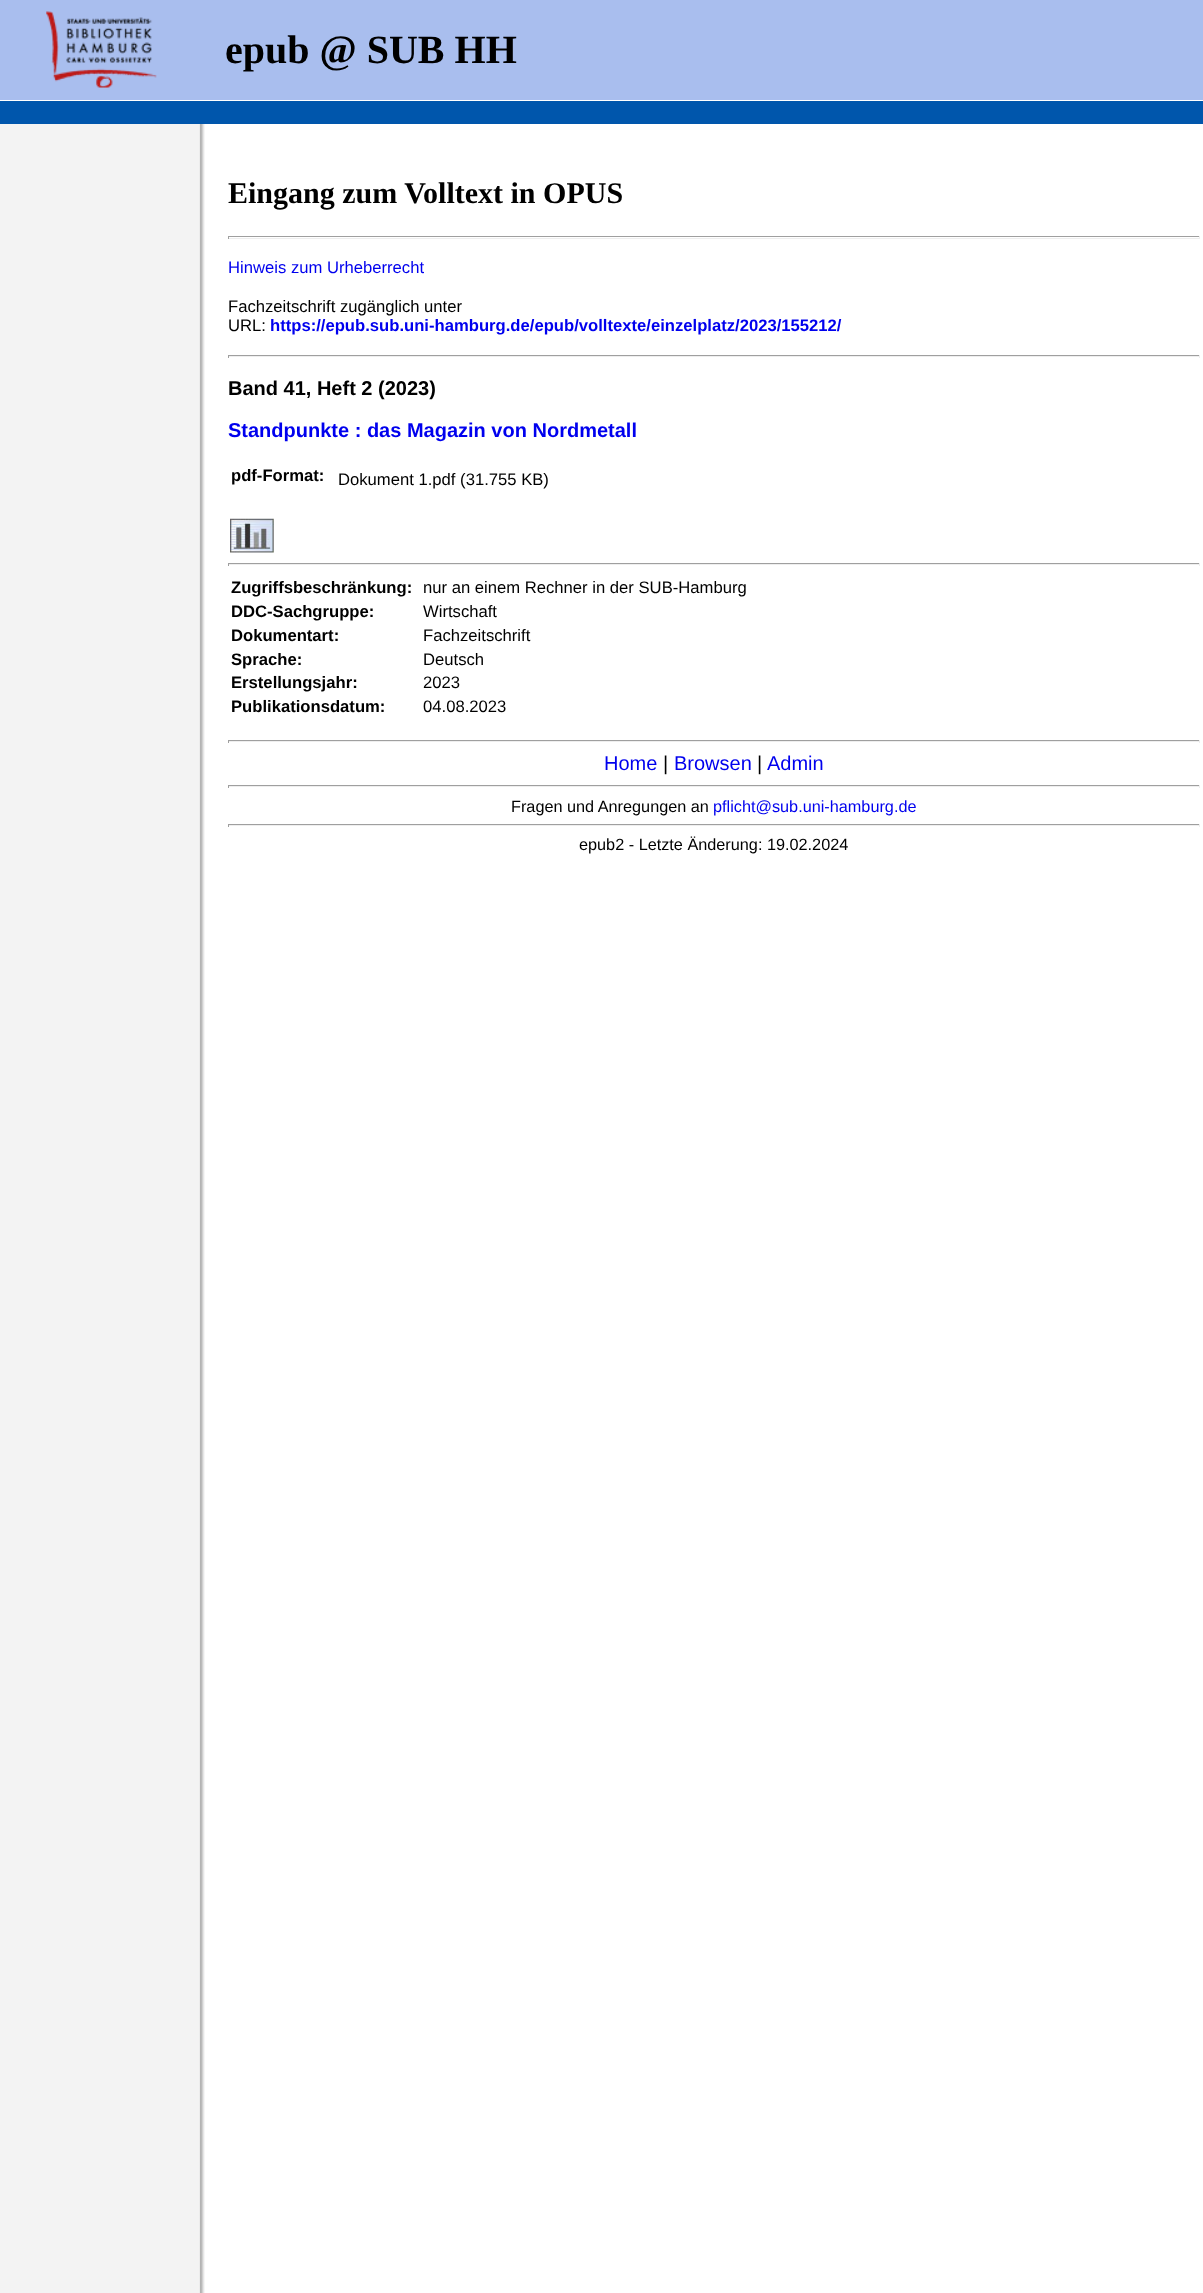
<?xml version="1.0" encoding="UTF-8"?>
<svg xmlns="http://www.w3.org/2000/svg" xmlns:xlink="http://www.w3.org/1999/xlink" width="1203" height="2293">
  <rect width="100%" height="100%" fill="#ffffff" />
  <image x="0" y="124" width="205" height="2169" xlink:href="image1.png" />
  <rect width="1203" height="100" fill="#a9beee" />
  <image x="46" y="11" width="111" height="77" xlink:href="image2.png" />
  <rect y="101" width="1203" height="23" fill="#0056ac" />
  <rect x="228" y="236" width="972" height="1" fill="#9f9f9f" />
  <rect x="1199" y="236" width="1" height="3" fill="#eeeeee" />
  <rect x="228" y="238" width="972" height="1" fill="#eeeeee" />
  <rect x="228" y="236" width="1" height="3" fill="#9f9f9f" />
  <rect x="228" y="355" width="972" height="1" fill="#9f9f9f" />
  <rect x="1199" y="355" width="1" height="3" fill="#eeeeee" />
  <rect x="228" y="356" width="972" height="1" fill="#eeeeee" />
  <rect x="228" y="355" width="1" height="3" fill="#9f9f9f" />
  <image x="230" y="518" width="44" height="35" xlink:href="image3.png" />
  <rect x="228" y="563" width="972" height="1" fill="#9f9f9f" />
  <rect x="1199" y="563" width="1" height="3" fill="#eeeeee" />
  <rect x="228" y="564" width="972" height="1" fill="#eeeeee" />
  <rect x="228" y="563" width="1" height="3" fill="#9f9f9f" />
  <rect x="228" y="740" width="972" height="1" fill="#9f9f9f" />
  <rect x="1199" y="740" width="1" height="3" fill="#eeeeee" />
  <rect x="228" y="741" width="972" height="1" fill="#eeeeee" />
  <rect x="228" y="740" width="1" height="3" fill="#9f9f9f" />
  <rect x="228" y="785" width="972" height="1" fill="#9f9f9f" />
  <rect x="1199" y="785" width="1" height="3" fill="#eeeeee" />
  <rect x="228" y="786" width="972" height="1" fill="#eeeeee" />
  <rect x="228" y="785" width="1" height="3" fill="#9f9f9f" />
  <rect x="228" y="824" width="972" height="1" fill="#9f9f9f" />
  <rect x="1199" y="824" width="1" height="3" fill="#eeeeee" />
  <rect x="228" y="825" width="972" height="1" fill="#eeeeee" />
  <rect x="228" y="824" width="1" height="3" fill="#9f9f9f" />
  <text x="225" y="63" style="font-family: Liberation Serif; font-size: 40px; font-weight: bold; fill: #000000">epub @ SUB HH</text>
  <text x="228" y="203" style="font-family: Liberation Serif; font-size: 30px; font-weight: bold; fill: #000000">Eingang zum Volltext in OPUS</text>
  <text x="228" y="273" style="font-family: Liberation Sans; font-size: 16.65px; fill: #0000ee">Hinweis zum Urheberrecht</text>
  <text x="228" y="312" style="font-family: Liberation Sans; font-size: 16.65px; fill: #000000">Fachzeitschrift zugänglich unter</text>
  <text x="228" y="331" style="font-family: Liberation Sans; font-size: 16.65px; fill: #000000">URL:</text>
  <text x="270" y="331" style="font-family: Liberation Sans; font-size: 16.65px; font-weight: bold; fill: #0000ee">https://epub.sub.uni-hamburg.de/epub/volltexte/einzelplatz/2023/155212/</text>
  <text x="228" y="395" style="font-family: Liberation Sans; font-size: 20px; font-weight: bold; fill: #000000">Band 41, Heft 2 (2023)</text>
  <text x="228" y="437" style="font-family: Liberation Sans; font-size: 20px; font-weight: bold; fill: #0000ee">Standpunkte : das Magazin von Nordmetall</text>
  <text x="231" y="481" style="font-family: Liberation Sans; font-size: 16.65px; font-weight: bold; fill: #000000">pdf-Format:</text>
  <text x="338" y="485" style="font-family: Liberation Sans; font-size: 16.65px; fill: #000000">Dokument 1.pdf (31.755 KB)</text>
  <text x="231" y="593" style="font-family: Liberation Sans; font-size: 16.65px; font-weight: bold; fill: #000000">Zugriffsbeschränkung:</text>
  <text x="423" y="593" style="font-family: Liberation Sans; font-size: 16.65px; fill: #000000">nur an einem Rechner in der SUB-Hamburg</text>
  <text x="231" y="617" style="font-family: Liberation Sans; font-size: 16.65px; font-weight: bold; fill: #000000">DDC-Sachgruppe:</text>
  <text x="423" y="617" style="font-family: Liberation Sans; font-size: 16.65px; fill: #000000">Wirtschaft</text>
  <text x="231" y="641" style="font-family: Liberation Sans; font-size: 16.65px; font-weight: bold; fill: #000000">Dokumentart:</text>
  <text x="423" y="641" style="font-family: Liberation Sans; font-size: 16.65px; fill: #000000">Fachzeitschrift</text>
  <text x="231" y="665" style="font-family: Liberation Sans; font-size: 16.65px; font-weight: bold; fill: #000000">Sprache:</text>
  <text x="423" y="665" style="font-family: Liberation Sans; font-size: 16.65px; fill: #000000">Deutsch</text>
  <text x="231" y="688" style="font-family: Liberation Sans; font-size: 16.65px; font-weight: bold; fill: #000000">Erstellungsjahr:</text>
  <text x="423" y="688" style="font-family: Liberation Sans; font-size: 16.65px; fill: #000000">2023</text>
  <text x="231" y="712" style="font-family: Liberation Sans; font-size: 16.65px; font-weight: bold; fill: #000000">Publikationsdatum:</text>
  <text x="423" y="712" style="font-family: Liberation Sans; font-size: 16.65px; fill: #000000">04.08.2023</text>
  <text x="604" y="770" style="font-family: Liberation Sans; font-size: 20px; fill: #0000ee">Home</text>
  <text x="663" y="770" style="font-family: Liberation Sans; font-size: 20px; fill: #000000">|</text>
  <text x="674" y="770" style="font-family: Liberation Sans; font-size: 20px; fill: #0000ee">Browsen</text>
  <text x="757" y="770" style="font-family: Liberation Sans; font-size: 20px; fill: #000000">|</text>
  <text x="767" y="770" style="font-family: Liberation Sans; font-size: 20px; fill: #0000ee">Admin</text>
  <text x="511" y="812" style="font-family: Liberation Sans; font-size: 16.25px; fill: #000000">Fragen und Anregungen an</text>
  <text x="713" y="812" style="font-family: Liberation Sans; font-size: 16.25px; fill: #0000ee">pflicht@sub.uni-hamburg.de</text>
  <text x="579" y="850" style="font-family: Liberation Sans; font-size: 16.25px; fill: #000000">epub2 - Letzte Änderung: 19.02.2024</text>
</svg>
